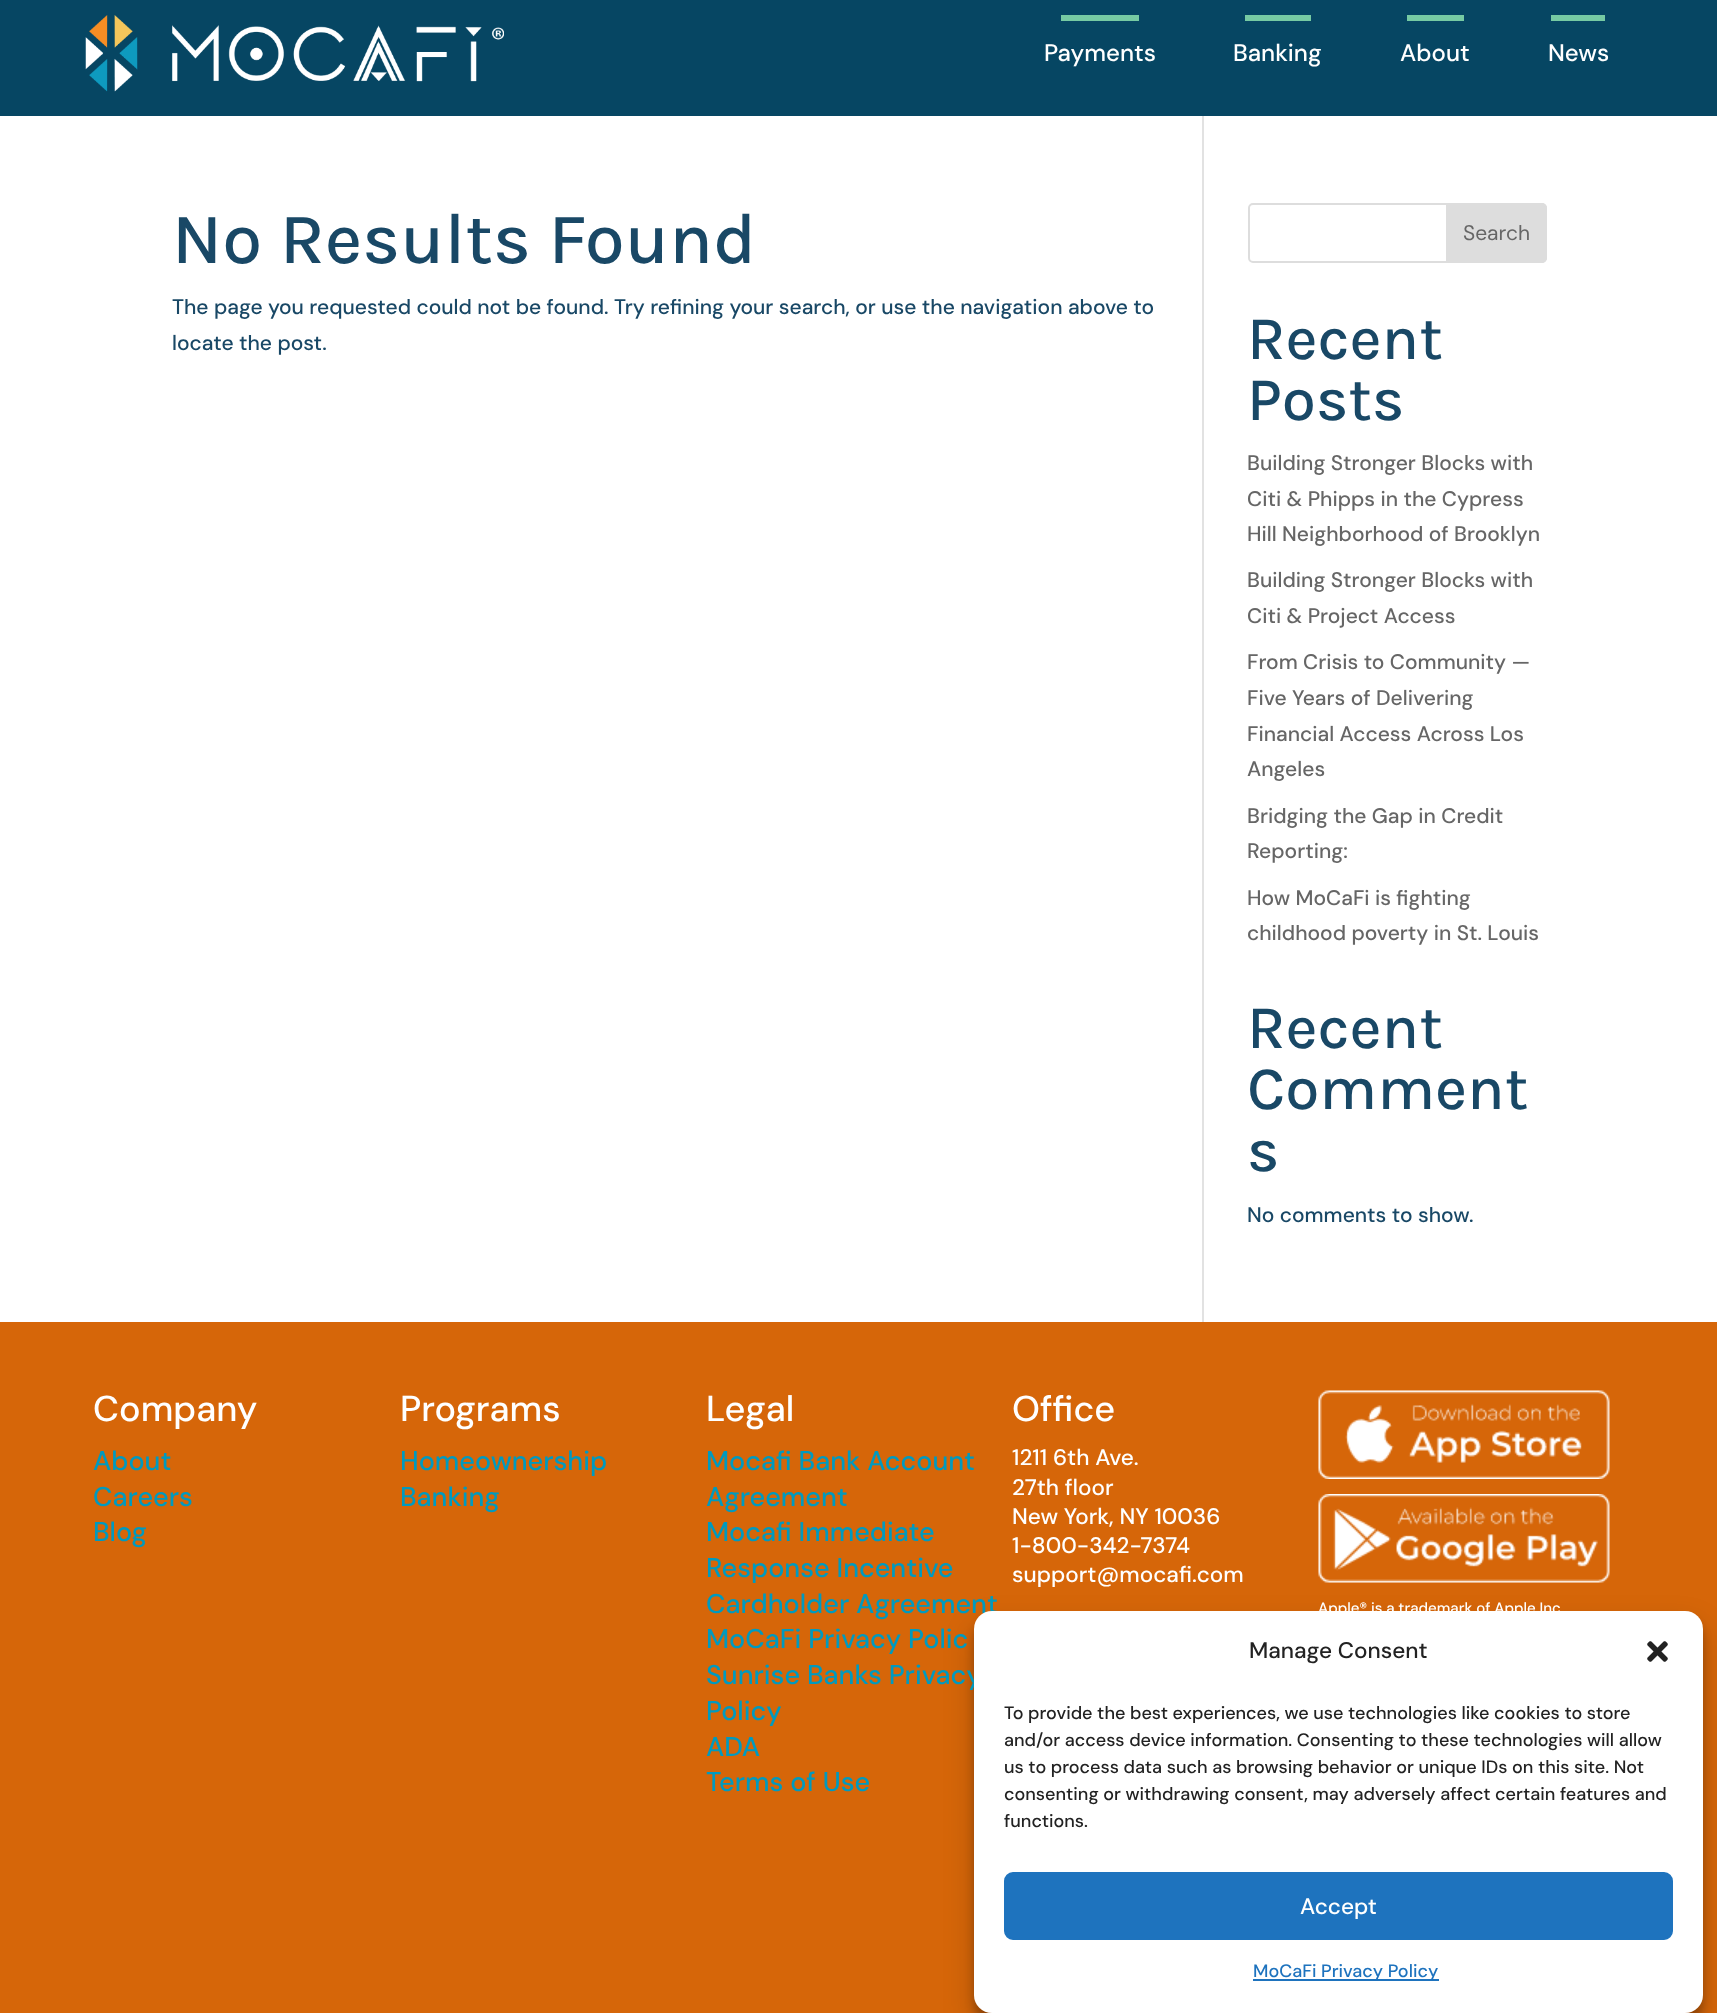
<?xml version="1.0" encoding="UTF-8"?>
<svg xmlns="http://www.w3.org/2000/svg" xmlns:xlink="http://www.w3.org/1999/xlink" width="1717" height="2013">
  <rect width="100%" height="100%" fill="#ffffff" />
  <rect width="1717" height="116" fill="#064663" />
  <image x="85" y="15" width="419" height="77" xlink:href="image1.png" />
  <rect x="1061" y="15" width="78" height="6" fill="#76caa3" />
  <rect x="1245" y="15" width="66" height="6" fill="#76caa3" />
  <rect x="1407" y="15" width="57" height="6" fill="#76caa3" />
  <rect x="1551" y="15" width="54" height="6" fill="#76caa3" />
  <rect x="1202" y="116" width="2" height="1206" fill="#e2e2e2" />
  <rect x="1249" y="204" width="297" height="58" rx="4" fill="none" stroke="#dddddd" stroke-width="2" />
  <path d="M 1447 204 h 95 c 2 0 4 2 4 4 v 50 c 0 2 -2 4 -4 4 h -95 z" fill="#dddddd" stroke="#dddddd" stroke-width="2" />
  <rect y="1322" width="1717" height="691" fill="#d66609" />
  <image x="1318" y="1390" width="292" height="89" xlink:href="image2.png" />
  <image x="1318" y="1494" width="292" height="89" xlink:href="image3.png" />
  <rect x="974" y="1620" width="729" height="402" rx="18" fill="#000000" fill-opacity="0.23" filter="blur(4.5px)" />
  <rect x="974" y="1626" width="729" height="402" rx="18" fill="#000000" fill-opacity="0.19" filter="blur(15px)" />
  <text x="1044" y="61" style="font-family: DM Sans; font-size: 24px; font-weight: 500; fill: #ffffff">Payments</text>
  <text x="1233" y="61" style="font-family: DM Sans; font-size: 24px; font-weight: 500; fill: #ffffff">Banking</text>
  <text x="1400" y="61" style="font-family: DM Sans; font-size: 24px; font-weight: 500; fill: #ffffff">About</text>
  <text x="1548" y="61" style="font-family: DM Sans; font-size: 24px; font-weight: 500; fill: #ffffff">News</text>
  <text x="172" y="263" style="font-family: Karla; font-size: 72px; font-weight: 500; fill: #194866">No Results Found</text>
  <text x="172" y="314" style="font-family: DM Sans; font-size: 21px; font-weight: 500; fill: #194866">The page you requested could not be found. Try refining your search, or use the navigation above to</text>
  <text x="172" y="350" style="font-family: DM Sans; font-size: 21px; font-weight: 500; fill: #194866">locate the post.</text>
  <text x="1463" y="240" style="font-family: DM Sans; font-size: 21px; fill: #666666">Search</text>
  <text x="1247" y="359" style="font-family: Karla; font-size: 61.5px; font-weight: 500; fill: #194866">Recent</text>
  <text x="1247" y="420" style="font-family: Karla; font-size: 61.5px; font-weight: 500; fill: #194866">Posts</text>
  <text x="1247" y="470" style="font-family: DM Sans; font-size: 21px; font-weight: 500; fill: #666666">Building Stronger Blocks with</text>
  <text x="1247" y="506" style="font-family: DM Sans; font-size: 21px; font-weight: 500; fill: #666666">Citi &amp; Phipps in the Cypress</text>
  <text x="1247" y="541" style="font-family: DM Sans; font-size: 21px; font-weight: 500; fill: #666666">Hill Neighborhood of Brooklyn</text>
  <text x="1247" y="587" style="font-family: DM Sans; font-size: 21px; font-weight: 500; fill: #666666">Building Stronger Blocks with</text>
  <text x="1247" y="623" style="font-family: DM Sans; font-size: 21px; font-weight: 500; fill: #666666">Citi &amp; Project Access</text>
  <text x="1247" y="669" style="font-family: DM Sans; font-size: 21px; font-weight: 500; fill: #666666">From Crisis to Community —</text>
  <text x="1247" y="705" style="font-family: DM Sans; font-size: 21px; font-weight: 500; fill: #666666">Five Years of Delivering</text>
  <text x="1247" y="741" style="font-family: DM Sans; font-size: 21px; font-weight: 500; fill: #666666">Financial Access Across Los</text>
  <text x="1247" y="776" style="font-family: DM Sans; font-size: 21px; font-weight: 500; fill: #666666">Angeles</text>
  <text x="1247" y="823" style="font-family: DM Sans; font-size: 21px; font-weight: 500; fill: #666666">Bridging the Gap in Credit</text>
  <text x="1247" y="858" style="font-family: DM Sans; font-size: 21px; font-weight: 500; fill: #666666">Reporting:</text>
  <text x="1247" y="905" style="font-family: DM Sans; font-size: 21px; font-weight: 500; fill: #666666">How MoCaFi is fighting</text>
  <text x="1247" y="940" style="font-family: DM Sans; font-size: 21px; font-weight: 500; fill: #666666">childhood poverty in St. Louis</text>
  <text x="1247" y="1048" style="font-family: Karla; font-size: 61.5px; font-weight: 500; fill: #194866">Recent</text>
  <text x="1247" y="1109" style="font-family: Karla; font-size: 61.5px; font-weight: 500; fill: #194866">Comment</text>
  <text x="1247" y="1171" style="font-family: Karla; font-size: 61.5px; font-weight: 500; fill: #194866">s</text>
  <text x="1247" y="1222" style="font-family: DM Sans; font-size: 21px; font-weight: 500; fill: #194866">No comments to show.</text>
  <text x="93" y="1421" style="font-family: DM Sans; font-size: 36px; font-weight: 500; fill: #ffffff">Company</text>
  <text x="93" y="1470" style="font-family: DM Sans; font-size: 27px; font-weight: 500; fill: #009abf">About</text>
  <text x="93" y="1506" style="font-family: DM Sans; font-size: 27px; font-weight: 500; fill: #009abf">Careers</text>
  <text x="93" y="1541" style="font-family: DM Sans; font-size: 27px; font-weight: 500; fill: #009abf">Blog</text>
  <text x="400" y="1421" style="font-family: DM Sans; font-size: 36px; font-weight: 500; fill: #ffffff">Programs</text>
  <text x="400" y="1470" style="font-family: DM Sans; font-size: 27px; font-weight: 500; fill: #009abf">Homeownership</text>
  <text x="400" y="1506" style="font-family: DM Sans; font-size: 27px; font-weight: 500; fill: #009abf">Banking</text>
  <text x="706" y="1421" style="font-family: DM Sans; font-size: 36px; font-weight: 500; fill: #ffffff">Legal</text>
  <text x="706" y="1470" style="font-family: DM Sans; font-size: 27px; font-weight: 500; fill: #009abf">Mocafi Bank Account</text>
  <text x="706" y="1506" style="font-family: DM Sans; font-size: 27px; font-weight: 500; fill: #009abf">Agreement</text>
  <text x="706" y="1541" style="font-family: DM Sans; font-size: 27px; font-weight: 500; fill: #009abf">Mocafi Immediate</text>
  <text x="706" y="1577" style="font-family: DM Sans; font-size: 27px; font-weight: 500; fill: #009abf">Response Incentive</text>
  <text x="706" y="1613" style="font-family: DM Sans; font-size: 27px; font-weight: 500; fill: #009abf">Cardholder Agreement</text>
  <text x="706" y="1648" style="font-family: DM Sans; font-size: 27px; font-weight: 500; fill: #009abf">MoCaFi Privacy Polic</text>
  <text x="706" y="1684" style="font-family: DM Sans; font-size: 27px; font-weight: 500; fill: #009abf">Sunrise Banks Privacy</text>
  <text x="706" y="1720" style="font-family: DM Sans; font-size: 27px; font-weight: 500; fill: #009abf">Policy</text>
  <text x="706" y="1756" style="font-family: DM Sans; font-size: 27px; font-weight: 500; fill: #009abf">ADA</text>
  <text x="706" y="1791" style="font-family: DM Sans; font-size: 27px; font-weight: 500; fill: #009abf">Terms of Use</text>
  <text x="1012" y="1421" style="font-family: DM Sans; font-size: 36px; font-weight: 500; fill: #ffffff">Office</text>
  <text x="1012" y="1465" style="font-family: DM Sans; font-size: 22.5px; font-weight: 500; fill: #ffffff">1211 6th Ave.</text>
  <text x="1012" y="1495" style="font-family: DM Sans; font-size: 22.5px; font-weight: 500; fill: #ffffff">27th floor</text>
  <text x="1012" y="1524" style="font-family: DM Sans; font-size: 22.5px; font-weight: 500; fill: #ffffff">New York, NY 10036</text>
  <text x="1012" y="1553" style="font-family: DM Sans; font-size: 22.5px; font-weight: 500; fill: #ffffff">1-800-342-7374</text>
  <text x="1012" y="1582" style="font-family: DM Sans; font-size: 22.5px; font-weight: 500; fill: #ffffff">support@mocafi.com</text>
  <text x="1318" y="1613" style="font-family: DM Sans; font-size: 15px; font-weight: 500; fill: #ffffff">Apple® is a trademark of Apple Inc</text>
  <rect x="974" y="1611" width="729" height="402" rx="18" fill="#ffffff" />
  <text x="1249" y="1658" style="font-family: DM Sans; font-size: 22.5px; font-weight: 500; fill: #222222">Manage Consent</text>
  <image x="1647" y="1641" width="21" height="21" xlink:href="image4.png" />
  <text x="1004" y="1719" style="font-family: DM Sans; font-size: 18px; font-weight: 500; fill: #222222">To provide the best experiences, we use technologies like cookies to store</text>
  <text x="1004" y="1746" style="font-family: DM Sans; font-size: 18px; font-weight: 500; fill: #222222">and/or access device information. Consenting to these technologies will allow</text>
  <text x="1004" y="1773" style="font-family: DM Sans; font-size: 18px; font-weight: 500; fill: #222222">us to process data such as browsing behavior or unique IDs on this site. Not</text>
  <text x="1004" y="1800" style="font-family: DM Sans; font-size: 18px; font-weight: 500; fill: #222222">consenting or withdrawing consent, may adversely affect certain features and</text>
  <text x="1004" y="1827" style="font-family: DM Sans; font-size: 18px; font-weight: 500; fill: #222222">functions.</text>
  <rect x="1005" y="1873" width="667" height="66" rx="8" fill="#1e73be" stroke="#1e73be" stroke-width="2" />
  <text x="1300" y="1914" style="font-family: DM Sans; font-size: 22.5px; font-weight: 500; fill: #ffffff">Accept</text>
  <rect x="1253" y="1979" width="186" height="2" fill="#1e73be" />
  <text x="1253" y="1977" style="font-family: DM Sans; font-size: 18px; font-weight: 500; fill: #1e73be">MoCaFi Privacy Policy</text>
</svg>
